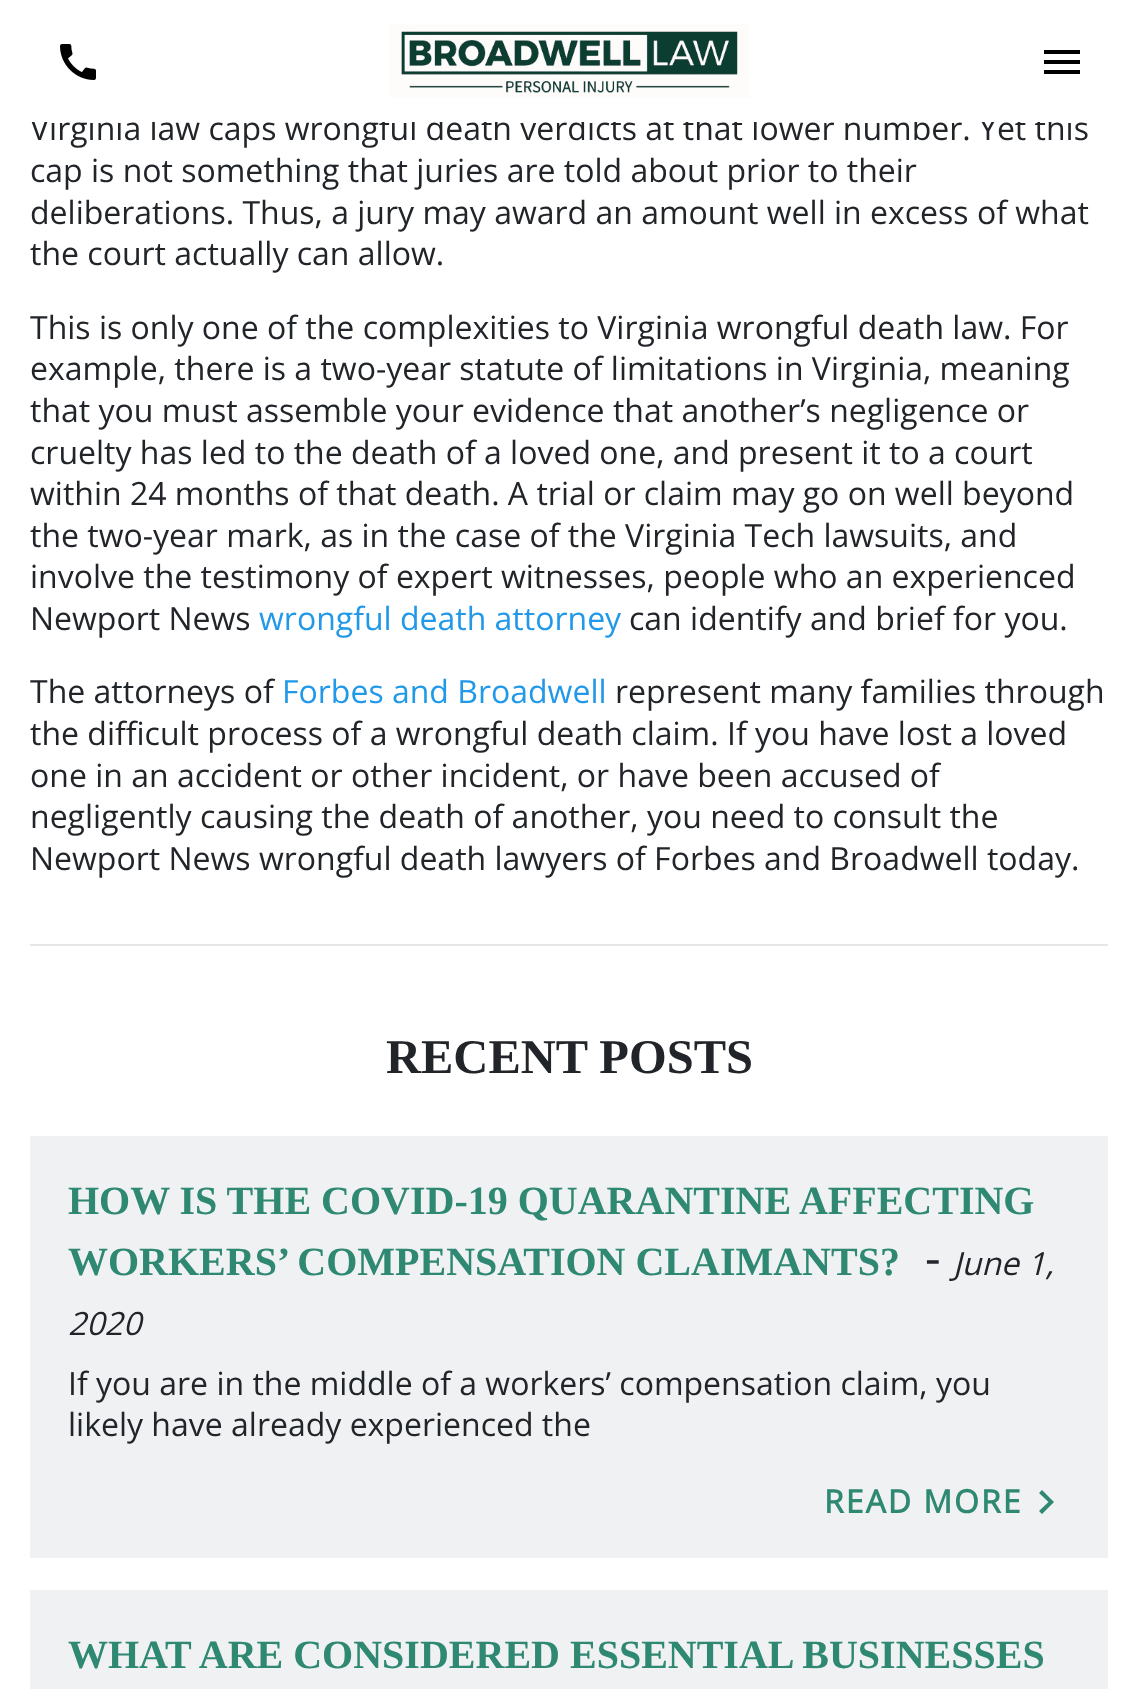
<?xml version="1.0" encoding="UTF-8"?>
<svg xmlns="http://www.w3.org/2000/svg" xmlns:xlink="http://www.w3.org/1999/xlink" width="1138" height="1689">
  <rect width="100%" height="100%" fill="#ffffff" />
  <image x="60" y="44" width="36" height="36" xlink:href="image1.png" />
  <image x="390" y="24" width="360" height="74" xlink:href="image2.png" />
  <path d="M 1044 74 h 36 v -4 h -36 z m 0 -10 h 36 v -4 h -36 z m 0 -14 v 4 h 36 v -4 z" fill="#000000" />
  <rect x="30" y="944" width="1078" height="2" fill="#e6e6e6" />
  <rect x="30" y="1136" width="1078" height="422" fill="#eff1f2" />
  <path d="M 1042 1490 l -3 3 l 9.5 9 l -9.5 9 l 3 3 l 12 -12 z" fill="#2e8872" />
  <rect x="30" y="1590" width="1078" height="99" fill="#eff1f2" />
  <text x="30" y="140" style="font-family: Open Sans; font-size: 32px; fill: #212529">Virginia law caps wrongful death verdicts at that lower number. Yet this</text>
  <rect x="30" y="115" width="1042" height="7" fill="#ffffff" />
  <text x="30" y="182" style="font-family: Open Sans; font-size: 32px; fill: #212529">cap is not something that juries are told about prior to their</text>
  <text x="30" y="224" style="font-family: Open Sans; font-size: 32px; fill: #212529">deliberations. Thus, a jury may award an amount well in excess of what</text>
  <text x="30" y="265" style="font-family: Open Sans; font-size: 32px; fill: #212529">the court actually can allow.</text>
  <text x="30" y="339" style="font-family: Open Sans; font-size: 32px; fill: #212529">This is only one of the complexities to Virginia wrongful death law. For</text>
  <text x="30" y="380" style="font-family: Open Sans; font-size: 32px; fill: #212529">example, there is a two-year statute of limitations in Virginia, meaning</text>
  <text x="30" y="422" style="font-family: Open Sans; font-size: 32px; fill: #212529">that you must assemble your evidence that another’s negligence or</text>
  <text x="30" y="464" style="font-family: Open Sans; font-size: 32px; fill: #212529">cruelty has led to the death of a loved one, and present it to a court</text>
  <text x="30" y="505" style="font-family: Open Sans; font-size: 32px; fill: #212529">within 24 months of that death. A trial or claim may go on well beyond</text>
  <text x="30" y="547" style="font-family: Open Sans; font-size: 32px; fill: #212529">the two-year mark, as in the case of the Virginia Tech lawsuits, and</text>
  <text x="30" y="588" style="font-family: Open Sans; font-size: 32px; fill: #212529">involve the testimony of expert witnesses, people who an experienced</text>
  <text x="30" y="630" style="font-family: Open Sans; font-size: 32px; fill: #212529">Newport News</text>
  <text x="259" y="630" style="font-family: Open Sans; font-size: 32px; fill: #2199e8">wrongful death attorney</text>
  <text x="629" y="630" style="font-family: Open Sans; font-size: 32px; fill: #212529">can identify and brief for you.</text>
  <text x="30" y="703" style="font-family: Open Sans; font-size: 32px; fill: #212529">The attorneys of</text>
  <text x="282" y="703" style="font-family: Open Sans; font-size: 32px; fill: #2199e8">Forbes and Broadwell</text>
  <text x="615" y="703" style="font-family: Open Sans; font-size: 32px; fill: #212529">represent many families through</text>
  <text x="30" y="745" style="font-family: Open Sans; font-size: 32px; fill: #212529">the difficult process of a wrongful death claim. If you have lost a loved</text>
  <text x="30" y="787" style="font-family: Open Sans; font-size: 32px; fill: #212529">one in an accident or other incident, or have been accused of</text>
  <text x="30" y="828" style="font-family: Open Sans; font-size: 32px; fill: #212529">negligently causing the death of another, you need to consult the</text>
  <text x="30" y="870" style="font-family: Open Sans; font-size: 32px; fill: #212529">Newport News wrongful death lawyers of Forbes and Broadwell today.</text>
  <text x="386" y="1073" style="font-family: Tinos; font-size: 48.5px; font-weight: bold; fill: #212529">RECENT POSTS</text>
  <text x="68" y="1214" style="font-family: Tinos; font-size: 40px; font-weight: bold; fill: #2e8872">HOW IS THE COVID-19 QUARANTINE AFFECTING</text>
  <text x="68" y="1275" style="font-family: Tinos; font-size: 40px; font-weight: bold; fill: #2e8872">WORKERS’ COMPENSATION CLAIMANTS?</text>
  <text x="925" y="1275" style="font-family: Open Sans; font-size: 48.5px; fill: #212529">-</text>
  <text x="953" y="1275" style="font-family: Open Sans; font-size: 32px; font-style: italic; fill: #212529">June 1,</text>
  <text x="68" y="1335" style="font-family: Open Sans; font-size: 32px; font-style: italic; fill: #212529">2020</text>
  <text x="68" y="1395" style="font-family: Open Sans; font-size: 32px; fill: #212529">If you are in the middle of a workers’ compensation claim, you</text>
  <text x="68" y="1436" style="font-family: Open Sans; font-size: 32px; fill: #212529">likely have already experienced the</text>
  <text x="824" y="1513" style="font-family: Open Sans; font-size: 32px; font-weight: bold; letter-spacing: 2px; fill: #2e8872">READ MORE</text>
  <text x="68" y="1668" style="font-family: Tinos; font-size: 40px; font-weight: bold; fill: #2e8872">WHAT ARE CONSIDERED ESSENTIAL BUSINESSES</text>
</svg>
